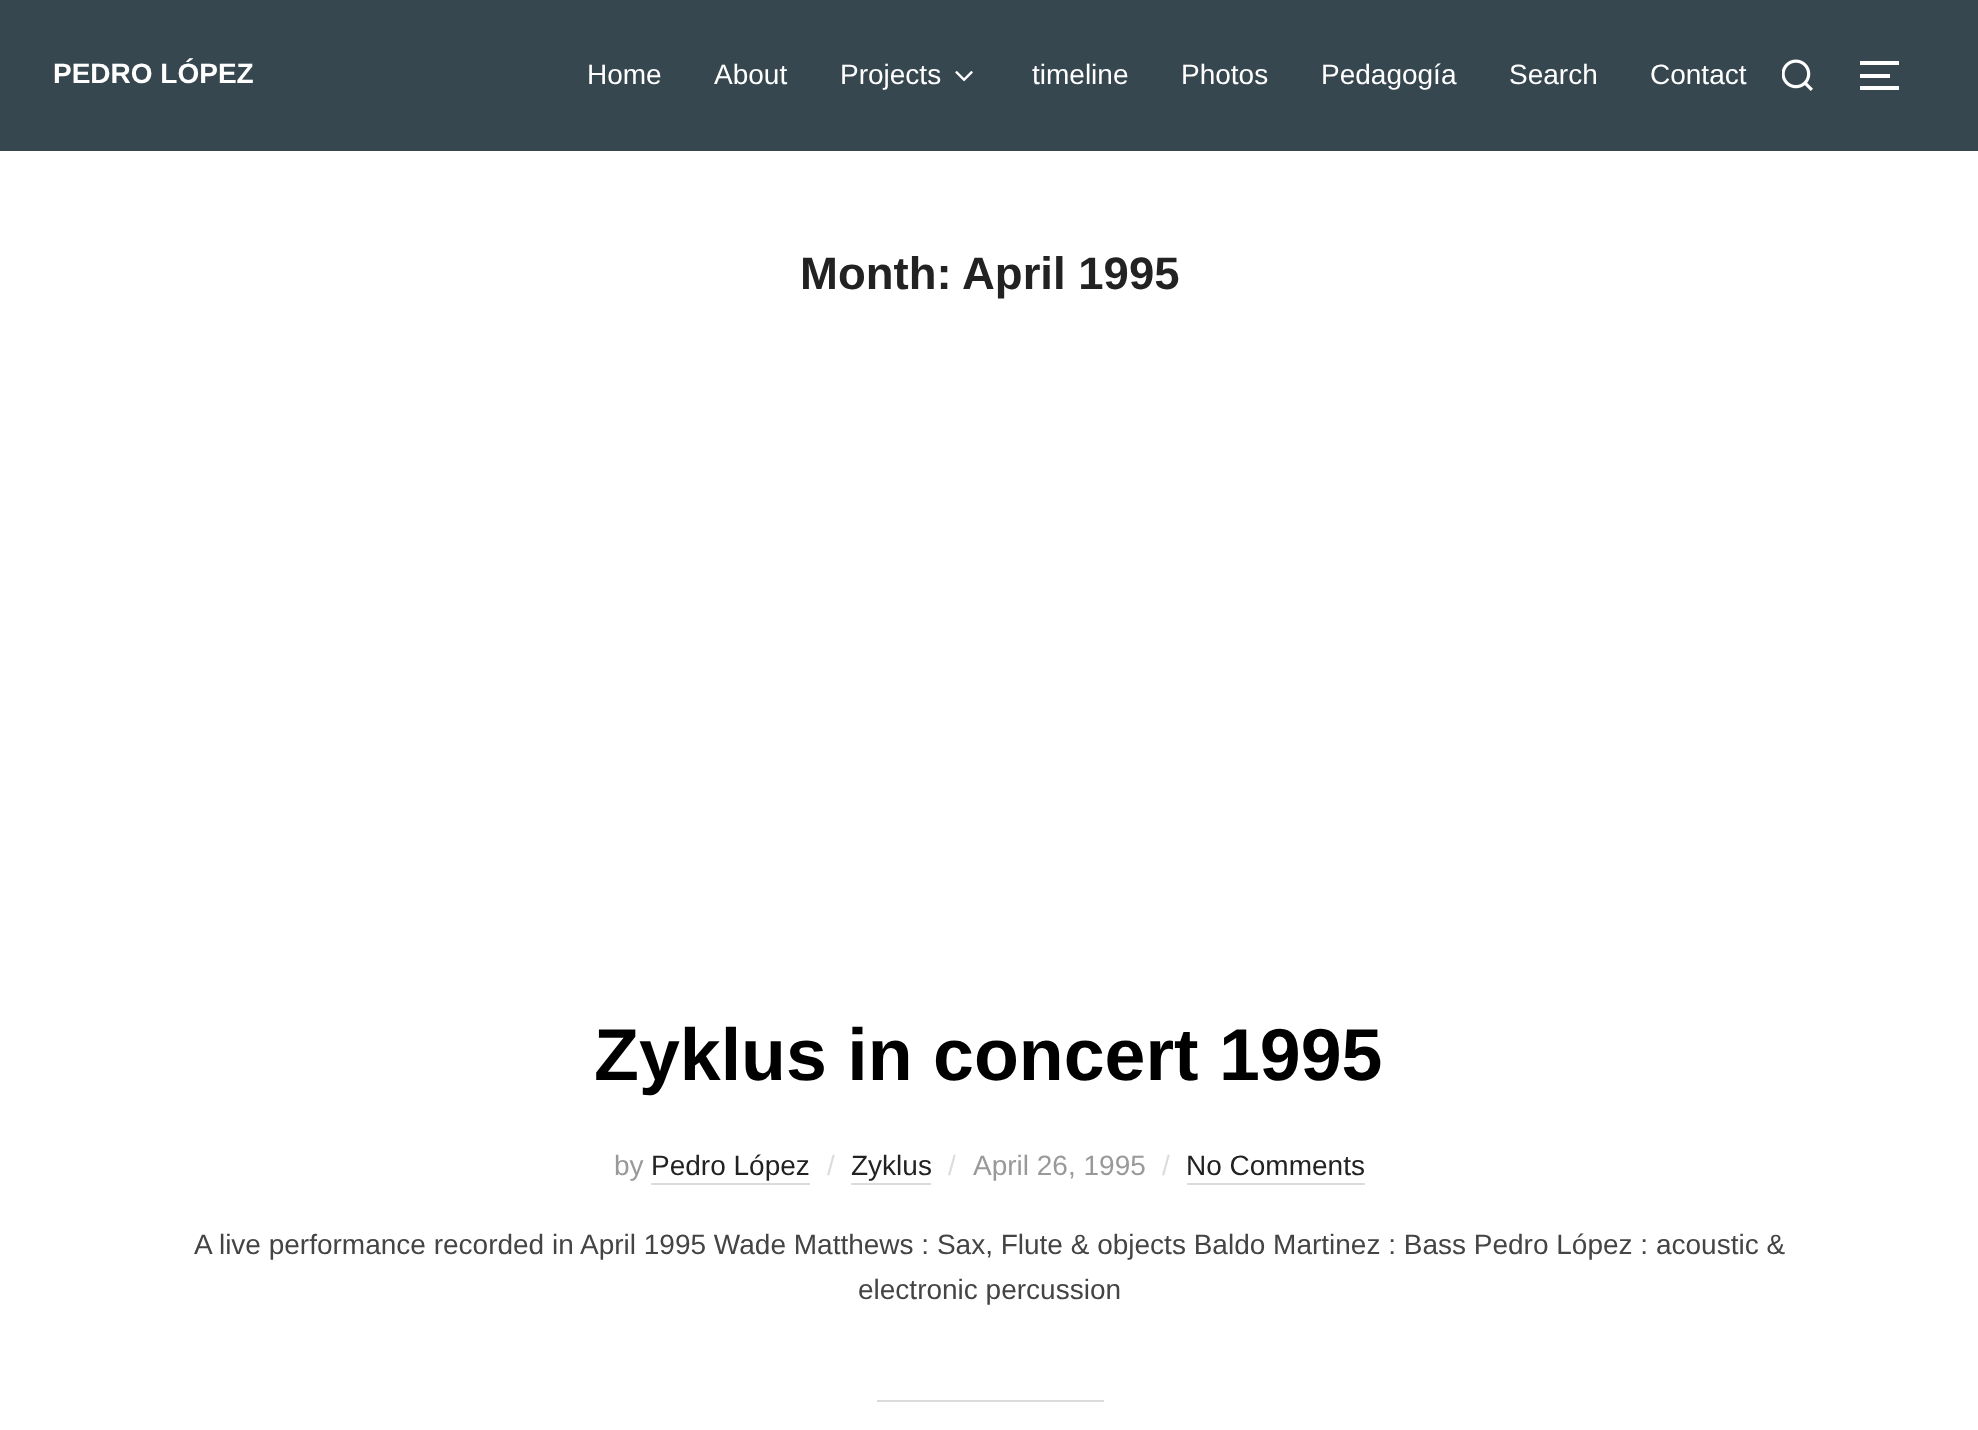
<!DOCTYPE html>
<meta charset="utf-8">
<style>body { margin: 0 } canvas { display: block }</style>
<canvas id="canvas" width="1978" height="1430"></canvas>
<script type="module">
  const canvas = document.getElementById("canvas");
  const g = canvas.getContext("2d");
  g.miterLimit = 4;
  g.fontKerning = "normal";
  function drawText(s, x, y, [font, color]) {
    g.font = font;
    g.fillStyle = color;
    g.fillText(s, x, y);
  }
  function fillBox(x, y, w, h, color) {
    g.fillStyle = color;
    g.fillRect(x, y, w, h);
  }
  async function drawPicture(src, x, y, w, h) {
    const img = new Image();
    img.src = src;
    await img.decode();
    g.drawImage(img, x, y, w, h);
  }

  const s1 = ["bold 28px Liberation Sans", "#FFFFFF"];
  const s2 = ["28px Liberation Sans", "#FFFFFF"];
  const s3 = ["bold 45.5px Liberation Sans", "#222222"];
  const s4 = ["bold 73.5px Liberation Sans", "#000000"];
  const s5 = ["28px Liberation Sans", "#999999"];
  const s6 = ["28px Liberation Sans", "#222222"];
  const s7 = ["28px Liberation Sans", "#DBDDDD"];
  const s8 = ["28px Liberation Sans", "#444444"];

  fillBox(0, 0, 1978, 1430, "#FFFFFF");
  fillBox(0, 0, 1978, 151, "#37474F");
  drawText("PEDRO LÓPEZ", 53, 83, s1);
  drawText("Home", 587, 84, s2);
  drawText("About", 714, 84, s2);
  drawText("Projects", 840, 84, s2);
  await drawPicture("pic1.png", 955, 71, 18, 11);
  drawText("timeline", 1032, 84, s2);
  drawText("Photos", 1181, 84, s2);
  drawText("Pedagogía", 1321, 84, s2);
  drawText("Search", 1509, 84, s2);
  drawText("Contact", 1650, 84, s2);
  await drawPicture("pic2.png", 1782, 59, 31, 32);
  fillBox(1860, 61, 39, 4, "#FFFFFF");
  fillBox(1860, 74, 30, 4, "#FFFFFF");
  fillBox(1860, 86, 39, 4, "#FFFFFF");
  drawText("Month:", 800, 289, s3);
  drawText("April 1995", 962, 289, s3);
  drawText("Zyklus in concert 1995", 594, 1080, s4);
  drawText("by", 614, 1175, s5);
  drawText("Pedro López", 651, 1175, s6);
  fillBox(651, 1183, 159, 2, "#DBDBDB");
  drawText("/", 827, 1175, s7);
  drawText("Zyklus", 851, 1175, s6);
  fillBox(851, 1183, 80, 2, "#DBDBDB");
  drawText("/", 948, 1175, s7);
  drawText("April 26, 1995", 973, 1175, s5);
  drawText("/", 1162, 1175, s7);
  drawText("No Comments", 1186, 1175, s6);
  fillBox(1187, 1183, 178, 2, "#DBDBDB");
  drawText("A live performance recorded in April 1995 Wade Matthews : Sax, Flute & objects Baldo Martinez : Bass Pedro López : acoustic &", 194, 1254, s8);
  drawText("electronic percussion", 858, 1299, s8);
  fillBox(877, 1400, 227, 2, "#DBDBDB");
</script>
